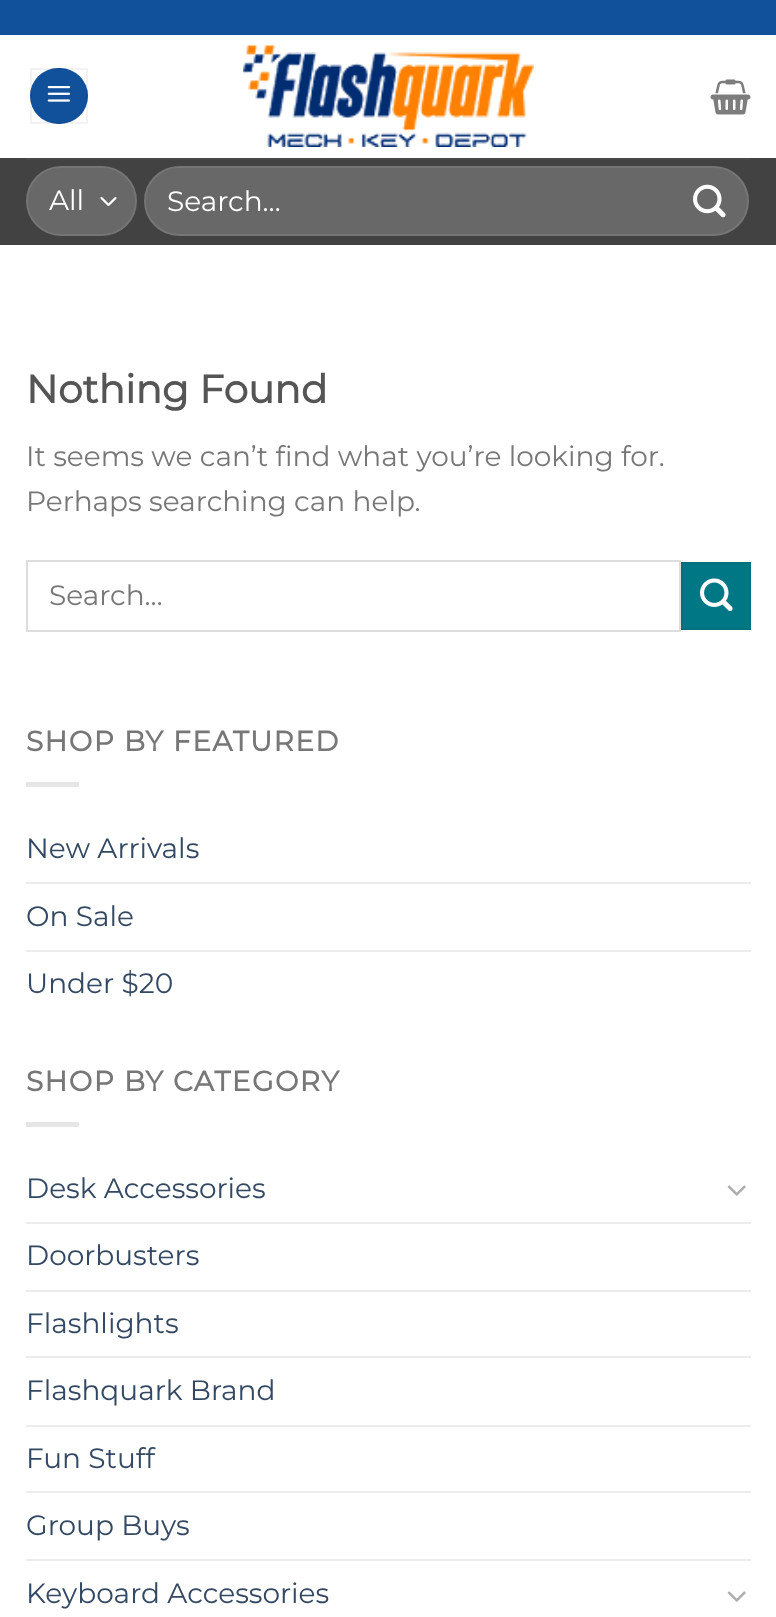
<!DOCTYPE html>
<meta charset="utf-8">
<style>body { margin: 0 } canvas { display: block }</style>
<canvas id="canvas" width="776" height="1617"></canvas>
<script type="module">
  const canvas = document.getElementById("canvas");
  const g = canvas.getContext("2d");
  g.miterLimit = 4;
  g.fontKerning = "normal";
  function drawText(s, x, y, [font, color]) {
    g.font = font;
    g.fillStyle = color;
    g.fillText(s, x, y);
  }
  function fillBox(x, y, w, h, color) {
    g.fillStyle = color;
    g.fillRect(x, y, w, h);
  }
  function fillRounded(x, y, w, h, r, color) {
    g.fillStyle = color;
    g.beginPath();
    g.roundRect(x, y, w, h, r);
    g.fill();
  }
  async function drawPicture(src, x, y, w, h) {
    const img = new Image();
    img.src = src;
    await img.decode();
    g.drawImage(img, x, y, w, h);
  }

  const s1 = ["100 28px Montserrat", "#FFFFFF"];
  const s2 = ["bold 39.25px Montserrat", "#555555"];
  const s3 = ["100 28px Montserrat", "#777777"];
  const s4 = ["bold 28px Montserrat", "#777777"];
  const s5 = ["100 28px Montserrat", "#334862"];

  fillBox(0, 0, 776, 1617, "#FFFFFF");
  fillBox(0, 0, 776, 35, "#11519B");
  fillRounded(30, 68, 58, 56, 28, "#11519B");
  g.strokeStyle = "rgba(0, 0, 0, 0.05)";
  g.lineWidth = 2;
  g.strokeRect(31, 69, 56, 54);
  await drawPicture("pic1.png", 47, 86, 24, 16);
  await drawPicture("pic2.png", 243, 45, 291, 102);
  await drawPicture("pic3.png", 710, 79, 41, 36);
  fillBox(0, 158, 776, 87, "#424242");
  fillBox(26, 158, 725, 2, "#474747");
  fillRounded(26, 166, 111, 70, 35, "#686868");
  g.beginPath();
  g.moveTo(101.5, 198);
  g.lineTo(108.5, 205);
  g.lineTo(115.5, 198);
  g.strokeStyle = "#FFFFFF";
  g.lineWidth = 2.3;
  g.lineCap = "round";
  g.lineJoin = "round";
  g.stroke();
  g.beginPath();
  g.roundRect(27, 167, 109, 68, 34);
  g.strokeStyle = "rgba(255, 255, 255, 0.09)";
  g.lineWidth = 2;
  g.lineJoin = "miter";
  g.stroke();
  drawText("All", 49, 210, s1);
  fillRounded(144, 166, 605, 70, 35, "#686868");
  g.beginPath();
  g.roundRect(145, 167, 603, 68, 34);
  g.stroke();
  drawText("Search…", 167, 211, s1);
  await drawPicture("pic4.png", 693, 184, 33, 34);
  drawText("Nothing Found", 26, 403, s2);
  drawText("It seems we can’t find what you’re looking for.", 26, 466, s3);
  drawText("Perhaps searching can help.", 26, 511, s3);
  g.strokeStyle = "#DDDDDD";
  g.strokeRect(27, 561, 653, 70);
  drawText("Search…", 49, 605, s3);
  g.fillStyle = "#007784";
  g.beginPath();
  g.rect(682, 563, 68, 66);
  g.fill();
  g.strokeStyle = "#00717D";
  g.stroke();
  await drawPicture("pic5.png", 700, 578, 33, 33);
  g.letterSpacing = "1.4px";
  drawText("SHOP BY FEATURED", 26, 751, s4);
  fillBox(26, 782, 53, 5, "#E6E6E6");
  g.letterSpacing = "0px";
  drawText("New Arrivals", 26, 858, s5);
  fillBox(26, 882, 725, 2, "#ECECEC");
  drawText("On Sale", 26, 926, s5);
  fillBox(26, 950, 725, 2, "#ECECEC");
  drawText("Under $20", 26, 993, s5);
  g.letterSpacing = "1.4px";
  drawText("SHOP BY CATEGORY", 26, 1091, s4);
  fillBox(26, 1122, 53, 5, "#E6E6E6");
  g.letterSpacing = "0px";
  drawText("Desk Accessories", 26, 1198, s5);
  await drawPicture("pic6.png", 727, 1185, 19, 11);
  fillBox(26, 1222, 725, 2, "#ECECEC");
  drawText("Doorbusters", 26, 1265, s5);
  fillBox(26, 1290, 725, 2, "#ECECEC");
  drawText("Flashlights", 26, 1333, s5);
  fillBox(26, 1356, 725, 2, "#ECECEC");
  drawText("Flashquark Brand", 26, 1400, s5);
  fillBox(26, 1425, 725, 2, "#ECECEC");
  drawText("Fun Stuff", 26, 1468, s5);
  fillBox(26, 1491, 725, 2, "#ECECEC");
  drawText("Group Buys", 26, 1535, s5);
  fillBox(26, 1559, 725, 2, "#ECECEC");
  drawText("Keyboard Accessories", 26, 1603, s5);
  await drawPicture("pic6.png", 727, 1591, 19, 11);
</script>
